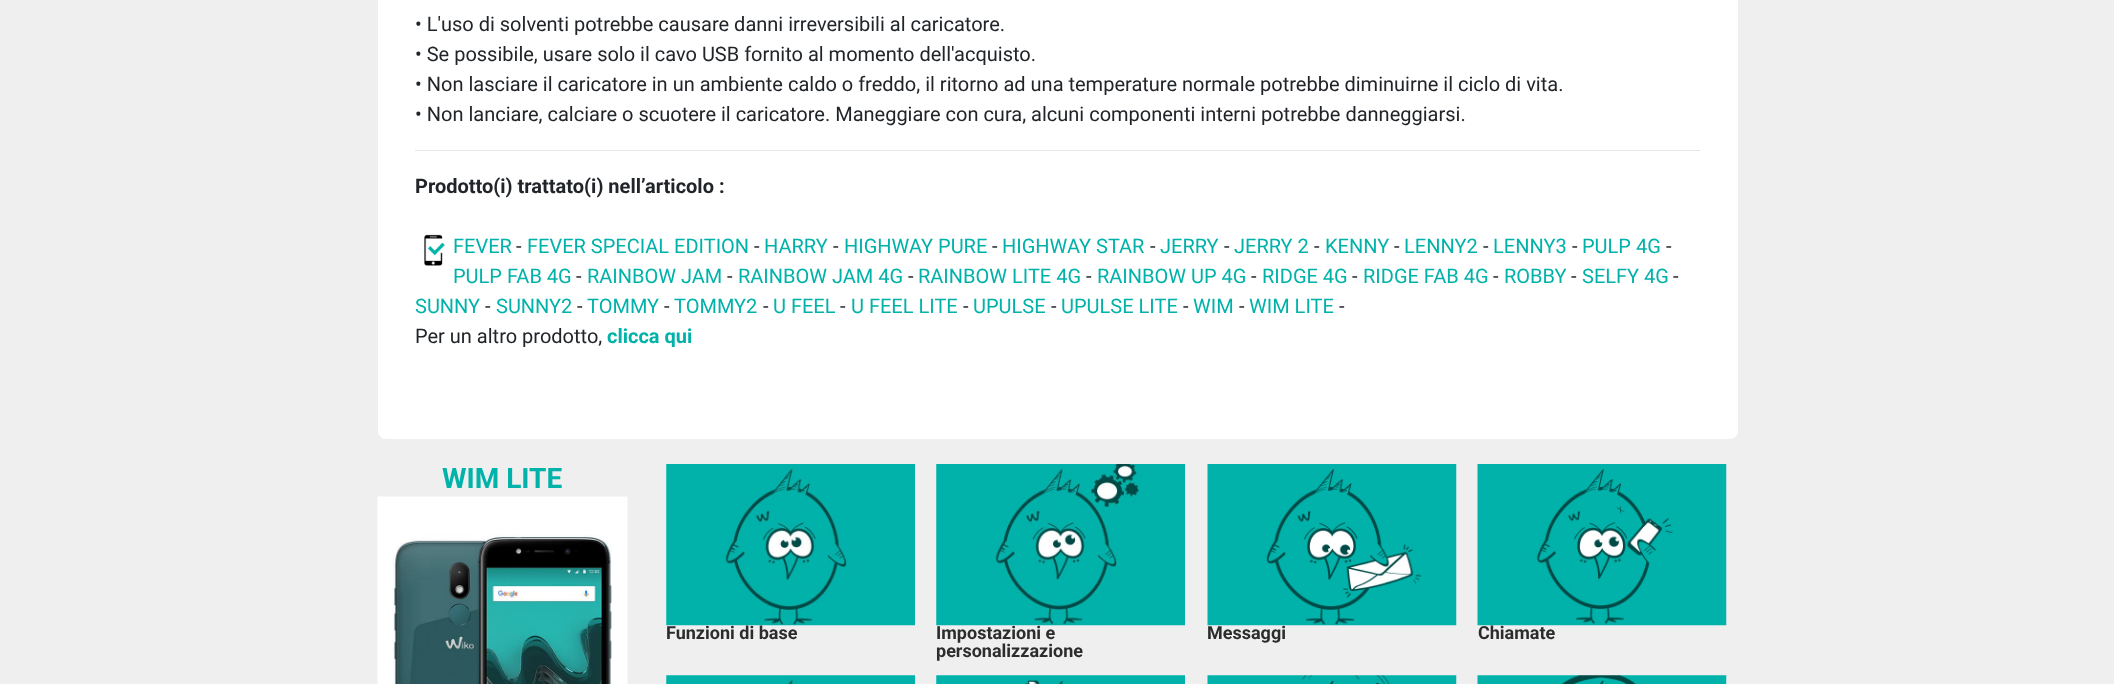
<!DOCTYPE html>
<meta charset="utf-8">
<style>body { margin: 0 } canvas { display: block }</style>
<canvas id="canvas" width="2114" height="684"></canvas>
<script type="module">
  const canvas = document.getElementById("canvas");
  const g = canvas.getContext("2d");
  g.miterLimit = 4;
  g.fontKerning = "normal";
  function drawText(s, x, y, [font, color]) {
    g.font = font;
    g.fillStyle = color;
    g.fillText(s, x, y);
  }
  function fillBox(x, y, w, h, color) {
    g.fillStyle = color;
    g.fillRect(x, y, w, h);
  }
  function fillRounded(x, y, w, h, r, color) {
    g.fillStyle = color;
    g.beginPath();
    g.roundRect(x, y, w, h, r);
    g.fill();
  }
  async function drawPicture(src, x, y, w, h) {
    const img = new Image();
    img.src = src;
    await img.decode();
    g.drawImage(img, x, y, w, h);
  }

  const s1 = ["20px Roboto", "#212529"];
  const s2 = ["bold 20px Roboto", "#212529"];
  const s3 = ["20px Roboto", "#00B2A9"];
  const s4 = ["bold 20px Roboto", "#00B2A9"];
  const s5 = ["bold 28px Roboto", "#00B2A9"];
  const s6 = ["bold 18px Roboto", "#2C2C2C"];

  fillBox(0, 0, 2114, 684, "#EFEFEF");
  fillRounded(378, -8, 1360, 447, 8, "#FFFFFF");
  drawText("• L'uso di solventi potrebbe causare danni irreversibili al caricatore.", 415, 31, s1);
  drawText("• Se possibile, usare solo il cavo USB fornito al momento dell'acquisto.", 415, 61, s1);
  drawText("• Non lasciare il caricatore in un ambiente caldo o freddo, il ritorno ad una temperature normale potrebbe diminuirne il ciclo di vita.", 415, 91, s1);
  drawText("• Non lanciare, calciare o scuotere il caricatore. Maneggiare con cura, alcuni componenti interni potrebbe danneggiarsi.", 415, 121, s1);
  fillBox(415, 150, 1285, 1, "#E6E6E6");
  drawText("Prodotto(i) trattato(i) nell’articolo :", 415, 193, s2);
  await drawPicture("pic1.png", 424, 234, 21, 32);
  drawText("FEVER", 453, 253, s3);
  drawText("-", 516, 253, s1);
  drawText("FEVER SPECIAL EDITION", 527, 253, s3);
  drawText("-", 754, 253, s1);
  drawText("HARRY", 764, 253, s3);
  drawText("-", 833, 253, s1);
  drawText("HIGHWAY PURE", 844, 253, s3);
  drawText("-", 992, 253, s1);
  drawText("HIGHWAY STAR", 1002, 253, s3);
  drawText("-", 1150, 253, s1);
  drawText("JERRY", 1160, 253, s3);
  drawText("-", 1224, 253, s1);
  drawText("JERRY 2", 1234, 253, s3);
  drawText("-", 1314, 253, s1);
  drawText("KENNY", 1325, 253, s3);
  drawText("-", 1394, 253, s1);
  drawText("LENNY2", 1404, 253, s3);
  drawText("-", 1483, 253, s1);
  drawText("LENNY3", 1493, 253, s3);
  drawText("-", 1572, 253, s1);
  drawText("PULP 4G", 1582, 253, s3);
  drawText("-", 1666, 253, s1);
  drawText("PULP FAB 4G", 453, 283, s3);
  drawText("-", 576, 283, s1);
  drawText("RAINBOW JAM", 587, 283, s3);
  drawText("-", 727, 283, s1);
  drawText("RAINBOW JAM 4G", 738, 283, s3);
  drawText("-", 908, 283, s1);
  drawText("RAINBOW LITE 4G", 918, 283, s3);
  drawText("-", 1086, 283, s1);
  drawText("RAINBOW UP 4G", 1097, 283, s3);
  drawText("-", 1251, 283, s1);
  drawText("RIDGE 4G", 1262, 283, s3);
  drawText("-", 1352, 283, s1);
  drawText("RIDGE FAB 4G", 1363, 283, s3);
  drawText("-", 1493, 283, s1);
  drawText("ROBBY", 1504, 283, s3);
  drawText("-", 1571, 283, s1);
  drawText("SELFY 4G", 1582, 283, s3);
  drawText("-", 1673, 283, s1);
  drawText("SUNNY", 415, 313, s3);
  drawText("-", 485, 313, s1);
  drawText("SUNNY2", 496, 313, s3);
  drawText("-", 577, 313, s1);
  drawText("TOMMY", 587, 313, s3);
  drawText("-", 664, 313, s1);
  drawText("TOMMY2", 674, 313, s3);
  drawText("-", 763, 313, s1);
  drawText("U FEEL", 773, 313, s3);
  drawText("-", 840, 313, s1);
  drawText("U FEEL LITE", 851, 313, s3);
  drawText("-", 963, 313, s1);
  drawText("UPULSE", 973, 313, s3);
  drawText("-", 1051, 313, s1);
  drawText("UPULSE LITE", 1061, 313, s3);
  drawText("-", 1183, 313, s1);
  drawText("WIM", 1193, 313, s3);
  drawText("-", 1239, 313, s1);
  drawText("WIM LITE", 1249, 313, s3);
  drawText("-", 1339, 313, s1);
  drawText("Per un altro prodotto,", 415, 343, s1);
  drawText("clicca qui", 607, 343, s4);
  drawText("WIM LITE", 442, 488, s5);
  await drawPicture("pic2.png", 377, 496, 251, 188);
  await drawPicture("pic3.png", 666, 464, 249, 162);
  drawText("Funzioni di base", 666, 639, s6);
  await drawPicture("pic4.png", 936, 464, 249, 162);
  drawText("Impostazioni e", 936, 639, s6);
  drawText("personalizzazione", 936, 657, s6);
  await drawPicture("pic5.png", 1207, 464, 250, 162);
  drawText("Messaggi", 1207, 639, s6);
  await drawPicture("pic6.png", 1477, 464, 250, 162);
  drawText("Chiamate", 1478, 639, s6);
  await drawPicture("pic7.png", 666, 675, 249, 9);
  await drawPicture("pic8.png", 936, 675, 249, 9);
  await drawPicture("pic9.png", 1207, 675, 250, 9);
  await drawPicture("pic10.png", 1477, 675, 250, 9);
</script>
